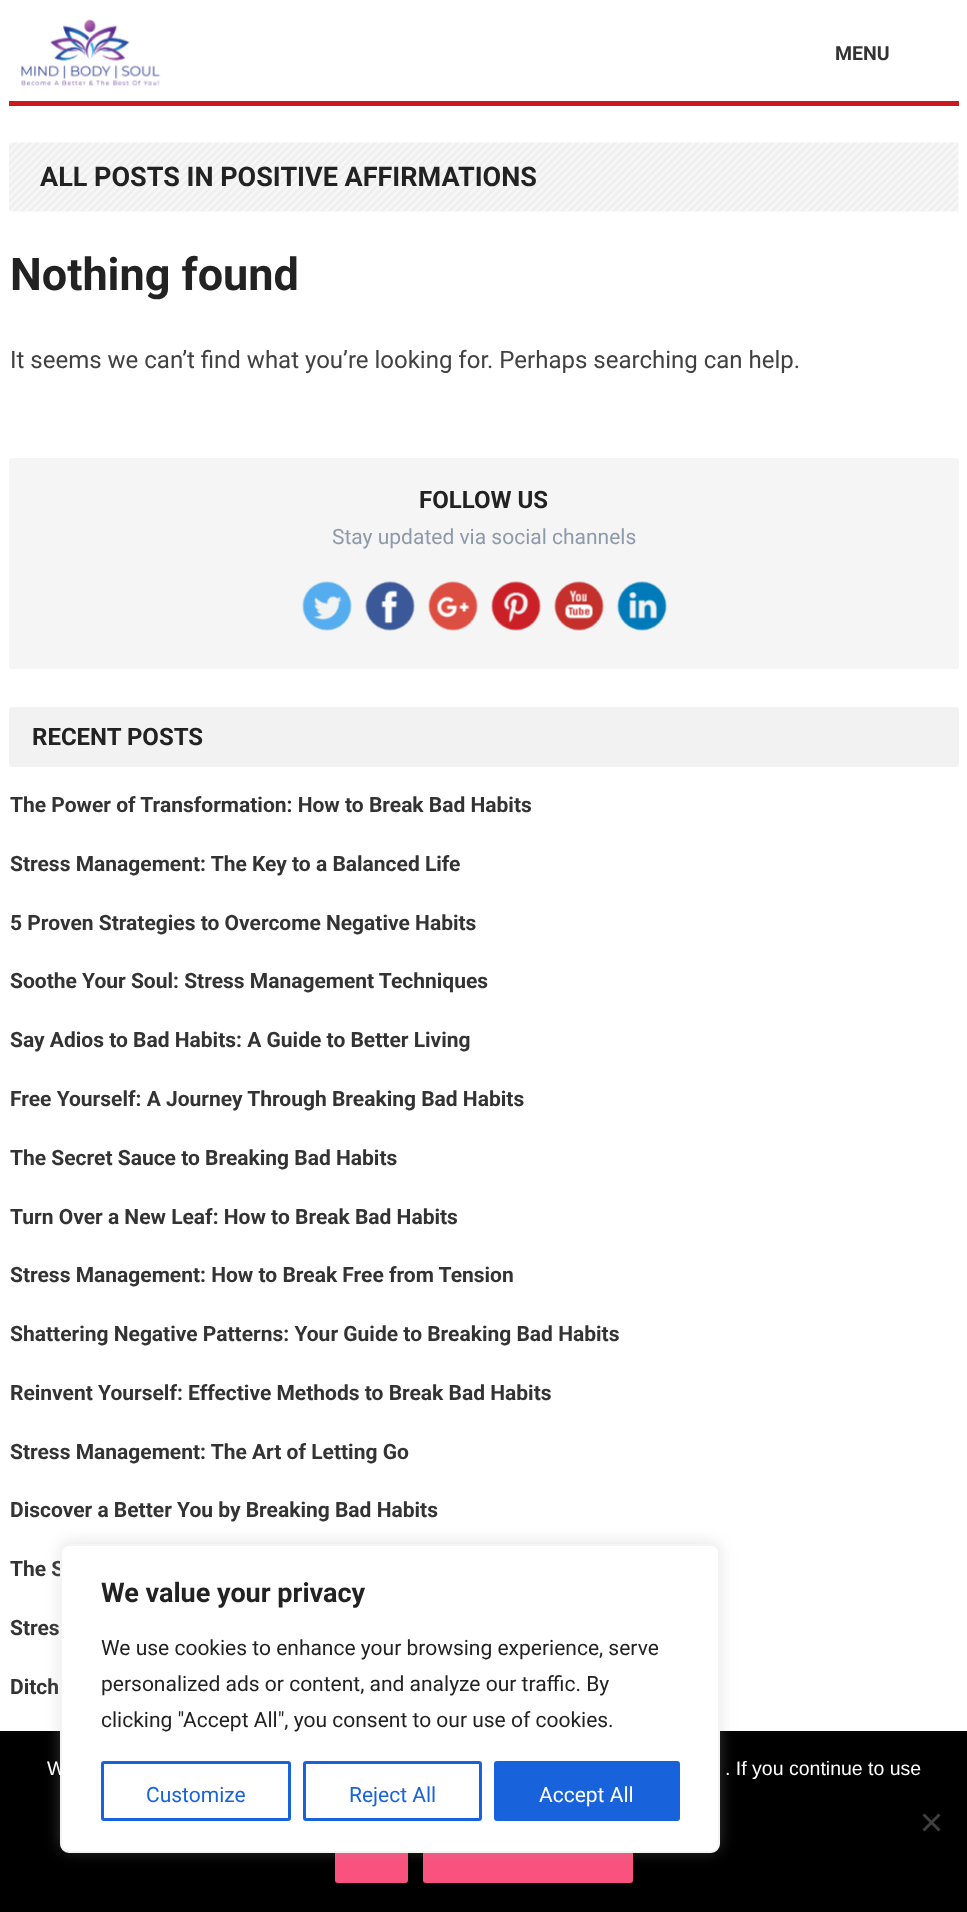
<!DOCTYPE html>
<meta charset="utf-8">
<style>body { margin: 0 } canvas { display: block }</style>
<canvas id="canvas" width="967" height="1912"></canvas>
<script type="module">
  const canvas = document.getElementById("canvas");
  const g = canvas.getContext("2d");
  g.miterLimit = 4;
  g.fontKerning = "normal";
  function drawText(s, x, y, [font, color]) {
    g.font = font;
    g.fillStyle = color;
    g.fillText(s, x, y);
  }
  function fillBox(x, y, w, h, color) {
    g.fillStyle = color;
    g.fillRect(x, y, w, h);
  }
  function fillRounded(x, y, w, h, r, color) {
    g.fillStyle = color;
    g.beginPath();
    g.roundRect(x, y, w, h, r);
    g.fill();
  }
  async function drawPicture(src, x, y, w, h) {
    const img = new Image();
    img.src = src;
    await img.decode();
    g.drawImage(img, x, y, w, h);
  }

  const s1 = ["bold 19.5px Roboto", "#333333"];
  const s2 = ["bold 27px Roboto", "#222222"];
  const s3 = ["bold 45px Roboto", "#222222"];
  const s4 = ["24px Roboto", "#414141"];
  const s5 = ["bold 24px Roboto", "#222222"];
  const s6 = ["21px Roboto", "#8E99A9"];
  const s7 = ["bold 21px Roboto", "#333333"];
  const s8 = ["21px Roboto", "#222222"];
  const s9 = ["21px Roboto", "#1863DC"];
  const s10 = ["21px Roboto", "#FFFFFF"];
  const s11 = ["19.5px Liberation Sans", "#FFFFFF"];

  fillBox(0, 0, 967, 1912, "#FFFFFF");
  fillBox(9, 101, 950, 5, "#CE181E");
  await drawPicture("pic1.png", 21, 19, 140, 67);
  drawText("MENU", 835, 60, s1);
  await drawPicture("pic2.png", 9, 142, 950, 70);
  drawText("ALL POSTS IN POSITIVE AFFIRMATIONS", 40, 186, s2);
  drawText("Nothing found", 10, 290, s3);
  drawText("It seems we can’t find what you’re looking for. Perhaps searching can help.", 10, 368, s4);
  fillRounded(9, 458, 950, 211, 3, "#F5F5F5");
  drawText("FOLLOW US", 419, 508, s5);
  drawText("Stay updated via social channels", 332, 544, s6);
  await drawPicture("pic3.png", 302, 581, 50, 50);
  await drawPicture("pic4.png", 365, 581, 50, 50);
  await drawPicture("pic5.png", 428, 581, 50, 50);
  await drawPicture("pic6.png", 491, 581, 50, 50);
  await drawPicture("pic7.png", 554, 581, 50, 50);
  await drawPicture("pic8.png", 617, 581, 50, 50);
  fillRounded(9, 707, 950, 60, 3, "#F2F2F2");
  drawText("RECENT POSTS", 32, 745, s5);
  drawText("The Power of Transformation: How to Break Bad Habits", 10, 812, s7);
  drawText("Stress Management: The Key to a Balanced Life", 10, 871, s7);
  drawText("5 Proven Strategies to Overcome Negative Habits", 10, 930, s7);
  drawText("Soothe Your Soul: Stress Management Techniques", 10, 988, s7);
  drawText("Say Adios to Bad Habits: A Guide to Better Living", 10, 1047, s7);
  drawText("Free Yourself: A Journey Through Breaking Bad Habits", 10, 1106, s7);
  drawText("The Secret Sauce to Breaking Bad Habits", 10, 1165, s7);
  drawText("Turn Over a New Leaf: How to Break Bad Habits", 10, 1224, s7);
  drawText("Stress Management: How to Break Free from Tension", 10, 1282, s7);
  drawText("Shattering Negative Patterns: Your Guide to Breaking Bad Habits", 10, 1341, s7);
  drawText("Reinvent Yourself: Effective Methods to Break Bad Habits", 10, 1400, s7);
  drawText("Stress Management: The Art of Letting Go", 10, 1459, s7);
  drawText("Discover a Better You by Breaking Bad Habits", 10, 1517, s7);
  drawText("The S", 10, 1576, s7);
  drawText("Stres", 10, 1635, s7);
  drawText("Ditch", 10, 1694, s7);
  fillBox(0, 1731, 967, 181, "#000000");
  fillRounded(335, 1823, 73, 60, 3, "#F9527F");
  fillRounded(423, 1823, 210, 60, 3, "#F9527F");
  g.fillStyle = "rgba(172, 171, 171, 0.3)";
  g.filter = "blur(7.5px)";
  g.beginPath();
  g.roundRect(60, 1542, 660, 309, 9);
  g.fill();
  g.filter = "none";
  g.fillStyle = "#FFFFFF";
  g.beginPath();
  g.roundRect(61, 1545, 658, 307, 8);
  g.fill();
  g.strokeStyle = "#F4F4F4";
  g.lineWidth = 2;
  g.stroke();
  drawText("We value your privacy", 101, 1602, s2);
  drawText("We use cookies to enhance your browsing experience, serve", 101, 1655, s8);
  drawText("personalized ads or content, and analyze our traffic. By", 101, 1691, s8);
  drawText("clicking \"Accept All\", you consent to our use of cookies.", 101, 1727, s8);
  g.beginPath();
  g.roundRect(102.5, 1762.5, 187, 57, 1.5);
  g.strokeStyle = "#1863DC";
  g.lineWidth = 3;
  g.stroke();
  drawText("Customize", 146, 1802, s9);
  g.beginPath();
  g.roundRect(304.5, 1762.5, 176, 57, 1.5);
  g.stroke();
  drawText("Reject All", 349, 1802, s9);
  g.beginPath();
  g.roundRect(495.5, 1762.5, 183, 57, 1.5);
  g.fill();
  g.stroke();
  drawText("Accept All", 539, 1802, s10);
  drawText("W", 47, 1775, s11);
  drawText(". If you continue to use", 725, 1775, s11);
  g.fillStyle = "#404040";
  g.beginPath();
  g.moveTo(938.5, 1813.5);
  g.lineTo(940.5, 1815.5);
  g.lineTo(924.5, 1831.5);
  g.lineTo(922.5, 1829.5);
  g.closePath();
  g.fill();
  g.beginPath();
  g.moveTo(922.5, 1815.5);
  g.lineTo(924.5, 1813.5);
  g.lineTo(940.5, 1829.5);
  g.lineTo(938.5, 1831.5);
  g.closePath();
  g.fill();
</script>
